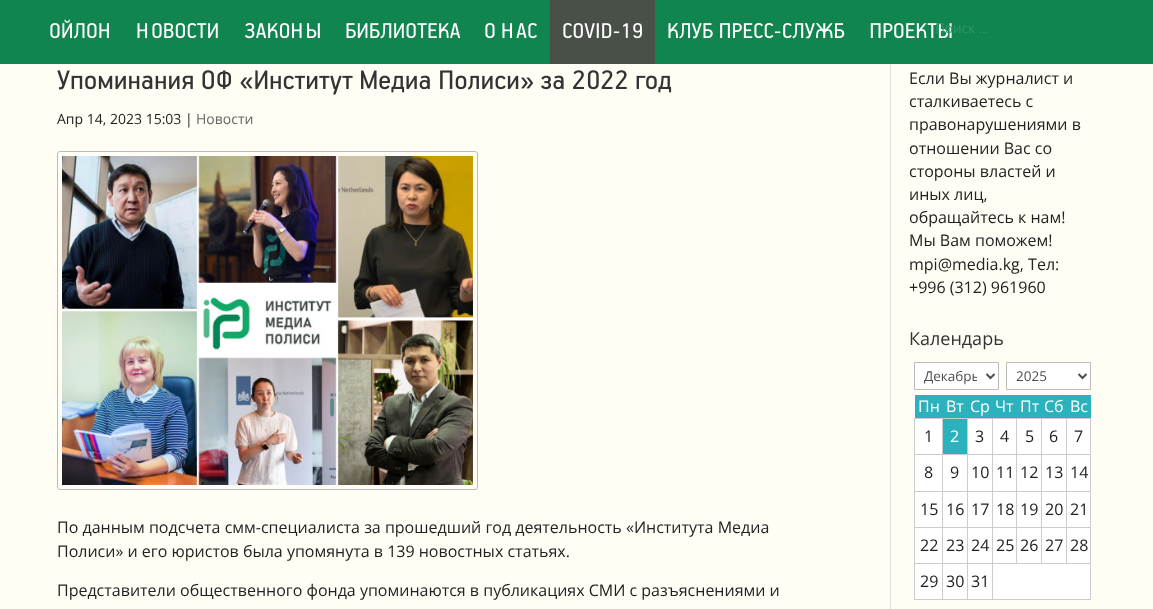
<!DOCTYPE html>
<meta charset="utf-8">
<style>body { margin: 0 } canvas { display: block }</style>
<canvas id="canvas" width="1153" height="609"></canvas>
<script type="module">
  const canvas = document.getElementById("canvas");
  const g = canvas.getContext("2d");
  g.miterLimit = 4;
  g.fontKerning = "normal";
  function drawText(s, x, y, [font, color]) {
    g.font = font;
    g.fillStyle = color;
    g.fillText(s, x, y);
  }
  function fillBox(x, y, w, h, color) {
    g.fillStyle = color;
    g.fillRect(x, y, w, h);
  }
  async function drawPicture(src, x, y, w, h) {
    const img = new Image();
    img.src = src;
    await img.decode();
    g.drawImage(img, x, y, w, h);
  }

  const s1 = ["13.5px Open Sans", "#309566"];
  const s2 = ["14px Open Sans", "#222222"];
  const s3 = ["14px Open Sans", "#666666"];
  const s4 = ["16px Open Sans", "#222222"];
  const s5 = ["18px Open Sans", "#333333"];
  const s6 = ["13.5px Open Sans", "#4E4E4E"];
  const s7 = ["16px Open Sans", "#FFFFFF"];

  fillBox(0, 0, 1153, 609, "#FFFDF4");
  fillBox(0, 0, 1153, 64, "#10854F");
  await drawPicture("pic1.png", 50, 19, 59, 20);
  await drawPicture("pic2.png", 137, 23, 81, 16);
  await drawPicture("pic3.png", 245, 23, 75, 16);
  await drawPicture("pic4.png", 346, 23, 115, 16);
  await drawPicture("pic5.png", 485, 23, 52, 16);
  fillBox(550, 0, 105, 64, "#495048");
  await drawPicture("pic6.png", 563, 23, 79, 16);
  await drawPicture("pic7.png", 668, 23, 177, 16);
  await drawPicture("pic8.png", 870, 23, 82, 16);
  drawText("Поиск …", 935, 33, s1);
  fillBox(890, 64, 1, 545, "#E2E2E2");
  await drawPicture("pic9.png", 57, 70, 615, 25);
  drawText("Апр 14, 2023 15:03 |", 57, 124, s2);
  drawText("Новости", 196, 124, s3);
  g.beginPath();
  g.roundRect(57.5, 151.5, 420, 338, 2.5);
  g.strokeStyle = "#BBBBBB";
  g.stroke();
  await drawPicture("pic10.png", 62, 156, 411, 329);
  drawText("По данным подсчета смм-специалиста за прошедший год деятельность «Института Медиа", 57, 533, s4);
  drawText("Полиси» и его юристов была упомянута в 139 новостных статьях.", 57, 557, s4);
  drawText("Представители общественного фонда упоминаются в публикациях СМИ с разъяснениями и", 57, 596, s4);
  drawText("Если Вы журналист и", 909, 84, s4);
  drawText("сталкиваетесь с", 909, 107, s4);
  drawText("правонарушениями в", 909, 130, s4);
  drawText("отношении Вас со", 909, 154, s4);
  drawText("стороны властей и", 909, 177, s4);
  drawText("иных лиц,", 909, 200, s4);
  drawText("обращайтесь к нам!", 909, 223, s4);
  drawText("Мы Вам поможем!", 909, 246, s4);
  drawText("mpi@media.kg, Тел:", 909, 270, s4);
  drawText("+996 (312) 961960", 909, 293, s4);
  drawText("Календарь", 909, 345, s5);
  g.fillStyle = "#FFFFFF";
  g.beginPath();
  g.rect(914.5, 362.5, 84, 27);
  g.fill();
  g.stroke();
  g.beginPath();
  g.moveTo(986.5, 374);
  g.lineTo(990.5, 378);
  g.lineTo(994.5, 374);
  g.strokeStyle = "#4E4E4E";
  g.lineWidth = 2;
  g.stroke();
  g.save();
  g.beginPath();
  g.rect(924, 366, 53, 20);
  g.clip();
  drawText("Декабрь", 924, 381, s6);
  g.restore();
  g.beginPath();
  g.rect(1006.5, 362.5, 84, 27);
  g.fill();
  g.strokeStyle = "#BBBBBB";
  g.lineWidth = 1;
  g.stroke();
  g.beginPath();
  g.moveTo(1078.5, 374);
  g.lineTo(1082.5, 378);
  g.lineTo(1086.5, 374);
  g.strokeStyle = "#4E4E4E";
  g.lineWidth = 2;
  g.stroke();
  drawText("2025", 1016, 381, s6);
  fillBox(914, 395, 176, 204, "#FFFFFF");
  fillBox(915, 395, 176, 23, "#2CB2BC");
  drawText("Пн", 918, 412, s7);
  drawText("Вт", 946, 412, s7);
  drawText("Ср", 970, 412, s7);
  drawText("Чт", 995, 412, s7);
  drawText("Пт", 1020, 412, s7);
  drawText("Сб", 1044, 412, s7);
  drawText("Вс", 1070, 412, s7);
  fillBox(1066, 418, 25, 1, "#CCCCCC");
  fillBox(1066, 454, 25, 1, "#CCCCCC");
  fillBox(1066, 491, 25, 1, "#CCCCCC");
  fillBox(1066, 527, 25, 1, "#CCCCCC");
  fillBox(992, 563, 99, 1, "#CCCCCC");
  fillBox(1066, 527, 1, 37, "#CCCCCC");
  fillBox(1041, 527, 26, 1, "#CCCCCC");
  fillBox(1066, 491, 1, 37, "#CCCCCC");
  fillBox(1041, 491, 26, 1, "#CCCCCC");
  fillBox(1066, 454, 1, 38, "#CCCCCC");
  fillBox(1041, 454, 26, 1, "#CCCCCC");
  fillBox(1066, 418, 1, 37, "#CCCCCC");
  fillBox(1041, 418, 26, 1, "#CCCCCC");
  fillBox(1041, 527, 1, 37, "#CCCCCC");
  fillBox(1016, 527, 26, 1, "#CCCCCC");
  fillBox(1041, 491, 1, 37, "#CCCCCC");
  fillBox(1016, 491, 26, 1, "#CCCCCC");
  fillBox(1041, 454, 1, 38, "#CCCCCC");
  fillBox(1016, 454, 26, 1, "#CCCCCC");
  fillBox(1041, 418, 1, 37, "#CCCCCC");
  fillBox(1016, 418, 26, 1, "#CCCCCC");
  fillBox(1016, 527, 1, 37, "#CCCCCC");
  fillBox(992, 527, 25, 1, "#CCCCCC");
  fillBox(1016, 491, 1, 37, "#CCCCCC");
  fillBox(992, 491, 25, 1, "#CCCCCC");
  fillBox(1016, 454, 1, 38, "#CCCCCC");
  fillBox(992, 454, 25, 1, "#CCCCCC");
  fillBox(1016, 418, 1, 37, "#CCCCCC");
  fillBox(992, 418, 25, 1, "#CCCCCC");
  fillBox(1090, 563, 1, 37, "#CCCCCC");
  fillBox(992, 599, 99, 1, "#CCCCCC");
  fillBox(992, 563, 1, 37, "#CCCCCC");
  fillBox(967, 563, 26, 1, "#CCCCCC");
  fillBox(992, 527, 1, 37, "#CCCCCC");
  fillBox(967, 527, 26, 1, "#CCCCCC");
  fillBox(992, 491, 1, 37, "#CCCCCC");
  fillBox(967, 491, 26, 1, "#CCCCCC");
  fillBox(992, 454, 1, 38, "#CCCCCC");
  fillBox(967, 454, 26, 1, "#CCCCCC");
  fillBox(992, 418, 1, 37, "#CCCCCC");
  fillBox(967, 418, 26, 1, "#CCCCCC");
  fillBox(967, 599, 26, 1, "#CCCCCC");
  fillBox(967, 563, 1, 37, "#CCCCCC");
  fillBox(942, 563, 26, 1, "#CCCCCC");
  fillBox(967, 527, 1, 37, "#CCCCCC");
  fillBox(942, 527, 26, 1, "#CCCCCC");
  fillBox(967, 491, 1, 37, "#CCCCCC");
  fillBox(942, 491, 26, 1, "#CCCCCC");
  fillBox(967, 454, 1, 38, "#CCCCCC");
  fillBox(942, 454, 26, 1, "#CCCCCC");
  fillBox(967, 418, 1, 37, "#CCCCCC");
  fillBox(942, 418, 26, 1, "#CCCCCC");
  fillBox(942, 599, 26, 1, "#CCCCCC");
  fillBox(942, 563, 1, 37, "#CCCCCC");
  fillBox(914, 563, 29, 1, "#CCCCCC");
  fillBox(942, 527, 1, 37, "#CCCCCC");
  fillBox(914, 527, 29, 1, "#CCCCCC");
  fillBox(942, 491, 1, 37, "#CCCCCC");
  fillBox(914, 491, 29, 1, "#CCCCCC");
  fillBox(942, 454, 1, 38, "#CCCCCC");
  fillBox(914, 454, 29, 1, "#CCCCCC");
  fillBox(942, 418, 1, 37, "#CCCCCC");
  fillBox(914, 418, 29, 1, "#CCCCCC");
  fillBox(914, 599, 29, 1, "#CCCCCC");
  fillBox(914, 563, 1, 37, "#CCCCCC");
  fillBox(914, 527, 1, 37, "#CCCCCC");
  fillBox(914, 491, 1, 37, "#CCCCCC");
  fillBox(914, 454, 1, 38, "#CCCCCC");
  fillBox(914, 418, 1, 37, "#CCCCCC");
  drawText("1", 924, 442, s4);
  fillBox(943, 419, 24, 35, "#2CB2BC");
  drawText("2", 950, 442, s7);
  drawText("3", 975, 442, s4);
  drawText("4", 1000, 442, s4);
  drawText("5", 1025, 442, s4);
  drawText("6", 1049, 442, s4);
  fillBox(1090, 527, 1, 37, "#CCCCCC");
  fillBox(1090, 491, 1, 37, "#CCCCCC");
  fillBox(1090, 454, 1, 38, "#CCCCCC");
  fillBox(1090, 418, 1, 37, "#CCCCCC");
  drawText("7", 1074, 442, s4);
  drawText("8", 924, 478, s4);
  drawText("9", 950, 478, s4);
  drawText("10", 971, 478, s4);
  drawText("11", 996, 478, s4);
  drawText("12", 1020, 478, s4);
  drawText("13", 1045, 478, s4);
  drawText("14", 1070, 478, s4);
  drawText("15", 920, 515, s4);
  drawText("16", 946, 515, s4);
  drawText("17", 971, 515, s4);
  drawText("18", 996, 515, s4);
  drawText("19", 1020, 515, s4);
  drawText("20", 1045, 515, s4);
  drawText("21", 1070, 515, s4);
  drawText("22", 920, 551, s4);
  drawText("23", 946, 551, s4);
  drawText("24", 971, 551, s4);
  drawText("25", 996, 551, s4);
  drawText("26", 1020, 551, s4);
  drawText("27", 1045, 551, s4);
  drawText("28", 1070, 551, s4);
  drawText("29", 920, 587, s4);
  drawText("30", 946, 587, s4);
  drawText("31", 971, 587, s4);
</script>
